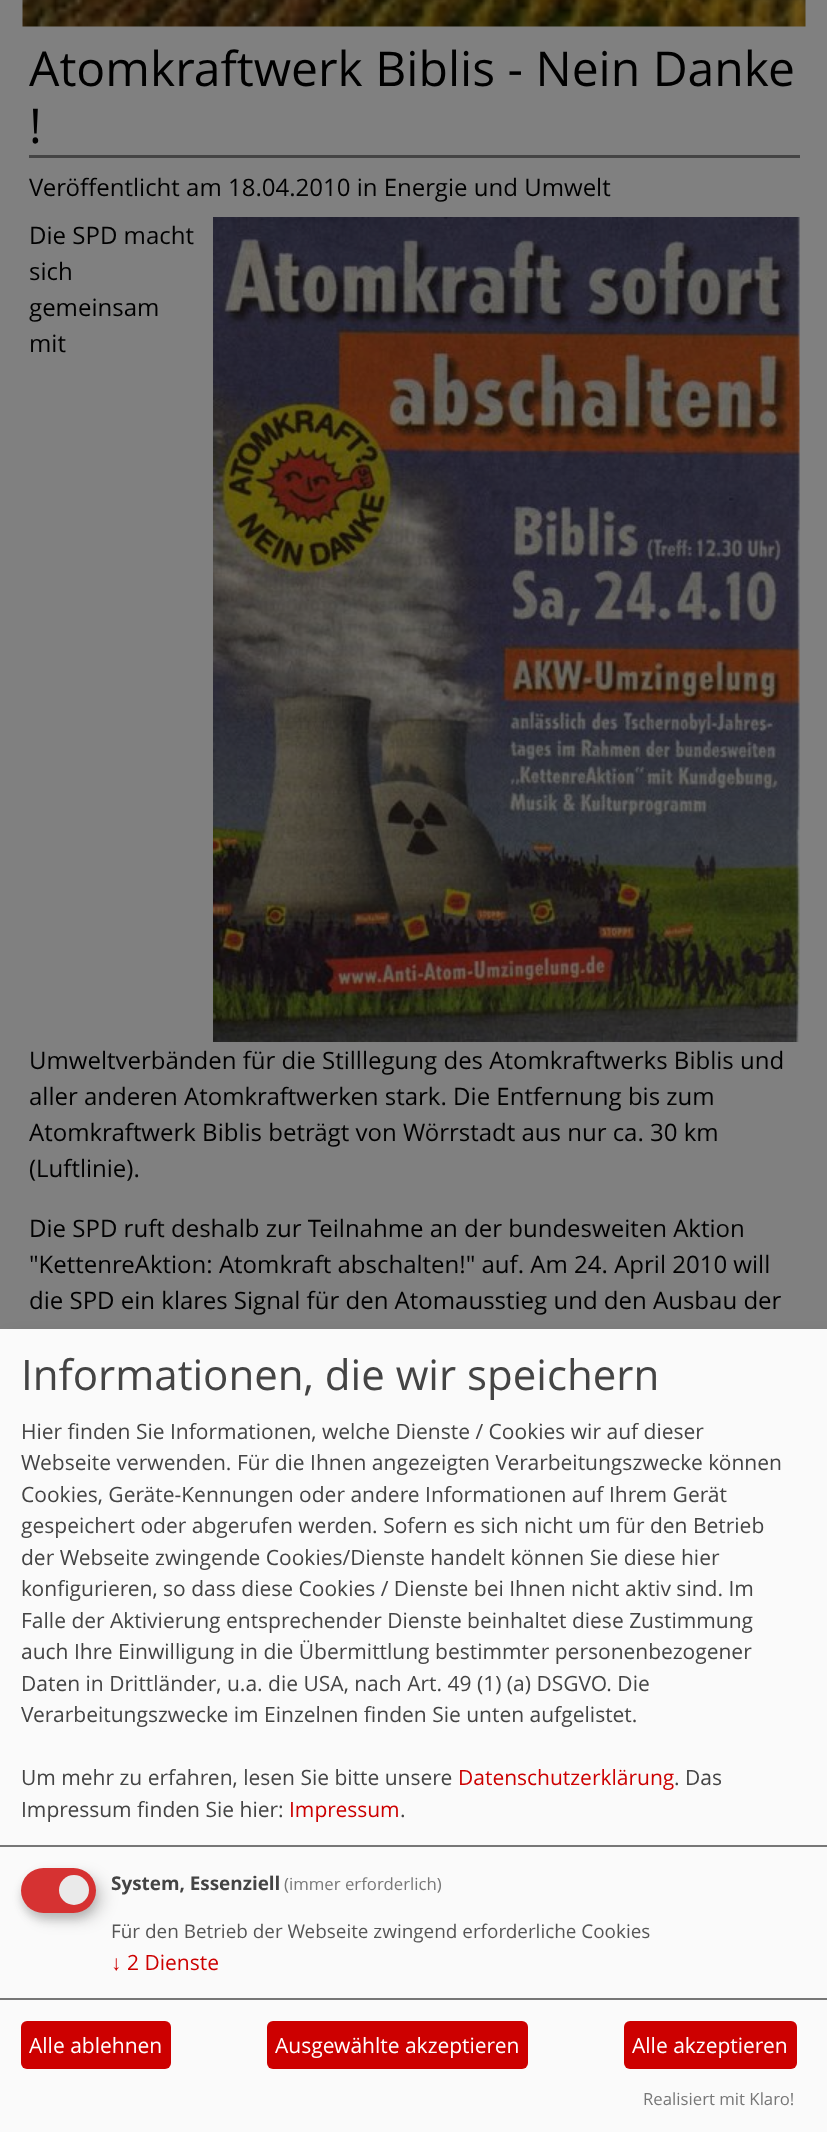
<!DOCTYPE html>
<meta charset="utf-8">
<style>body { margin: 0 } canvas { display: block }</style>
<canvas id="canvas" width="827" height="2132"></canvas>
<script type="module">
  const canvas = document.getElementById("canvas");
  const g = canvas.getContext("2d");
  g.miterLimit = 4;
  g.fontKerning = "normal";
  function drawText(s, x, y, [font, color]) {
    g.font = font;
    g.fillStyle = color;
    g.fillText(s, x, y);
  }
  function fillBox(x, y, w, h, color) {
    g.fillStyle = color;
    g.fillRect(x, y, w, h);
  }
  function fillRounded(x, y, w, h, r, color) {
    g.fillStyle = color;
    g.beginPath();
    g.roundRect(x, y, w, h, r);
    g.fill();
  }
  async function drawPicture(src, x, y, w, h) {
    const img = new Image();
    img.src = src;
    await img.decode();
    g.drawImage(img, x, y, w, h);
  }

  const s1 = ["48px Open Sans", "#000000"];
  const s2 = ["24px Open Sans", "#000000"];
  const s3 = ["42px Open Sans", "#444444"];
  const s4 = ["21px Open Sans", "#444444"];
  const s5 = ["21px Open Sans", "#CD0000"];
  const s6 = ["bold 18.9px Open Sans", "#444444"];
  const s7 = ["16.75px Open Sans", "#777777"];
  const s8 = ["18.9px Open Sans", "#555555"];
  const s9 = ["21px Liberation Sans", "#CD0000"];
  const s10 = ["21px Open Sans", "#FFFFFF"];

  fillBox(0, 0, 827, 2132, "#808080");
  await drawPicture("pic1.png", 22, 0, 784, 27);
  fillBox(29, 155, 771, 3, "#444444");
  drawText("Atomkraftwerk Biblis - Nein Danke", 29, 86, s1);
  drawText("!", 29, 143, s1);
  drawText("Veröffentlicht am 18.04.2010 in Energie und Umwelt", 29, 196, s2);
  await drawPicture("pic2.png", 213, 217, 587, 825);
  drawText("Die SPD macht", 29, 244, s2);
  drawText("sich", 29, 280, s2);
  drawText("gemeinsam", 29, 316, s2);
  drawText("mit", 29, 352, s2);
  drawText("Umweltverbänden für die Stilllegung des Atomkraftwerks Biblis und", 29, 1069, s2);
  drawText("aller anderen Atomkraftwerken stark. Die Entfernung bis zum", 29, 1105, s2);
  drawText("Atomkraftwerk Biblis beträgt von Wörrstadt aus nur ca. 30 km", 29, 1141, s2);
  drawText("(Luftlinie).", 29, 1177, s2);
  drawText("Die SPD ruft deshalb zur Teilnahme an der bundesweiten Aktion", 29, 1237, s2);
  drawText("\"KettenreAktion: Atomkraft abschalten!\" auf. Am 24. April 2010 will", 29, 1273, s2);
  drawText("die SPD ein klares Signal für den Atomausstieg und den Ausbau der", 29, 1309, s2);
  g.fillStyle = "rgba(0, 0, 0, 0.19)";
  g.filter = "blur(7.5px)";
  g.beginPath();
  g.rect(8, 1337, 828, 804);
  g.fill();
  g.filter = "none";
  fillBox(0, 1329, 827, 803, "#FAFAFA");
  fillBox(0, 1845, 827, 2, "#777777");
  drawText("Informationen, die wir speichern", 21, 1390, s3);
  drawText("Hier finden Sie Informationen, welche Dienste / Cookies wir auf dieser", 21, 1439, s4);
  drawText("Webseite verwenden. Für die Ihnen angezeigten Verarbeitungszwecke können", 21, 1470, s4);
  drawText("Cookies, Geräte-Kennungen oder andere Informationen auf Ihrem Gerät", 21, 1502, s4);
  drawText("gespeichert oder abgerufen werden. Sofern es sich nicht um für den Betrieb", 21, 1533, s4);
  drawText("der Webseite zwingende Cookies/Dienste handelt können Sie diese hier", 21, 1565, s4);
  drawText("konfigurieren, so dass diese Cookies / Dienste bei Ihnen nicht aktiv sind. Im", 21, 1596, s4);
  drawText("Falle der Aktivierung entsprechender Dienste beinhaltet diese Zustimmung", 21, 1628, s4);
  drawText("auch Ihre Einwilligung in die Übermittlung bestimmter personenbezogener", 21, 1659, s4);
  drawText("Daten in Drittländer, u.a. die USA, nach Art. 49 (1) (a) DSGVO. Die", 21, 1691, s4);
  drawText("Verarbeitungszwecke im Einzelnen finden Sie unten aufgelistet.", 21, 1722, s4);
  drawText("Um mehr zu erfahren, lesen Sie bitte unsere", 21, 1785, s4);
  drawText("Datenschutzerklärung", 458, 1785, s5);
  drawText(". Das", 674, 1785, s4);
  drawText("Impressum finden Sie hier:", 21, 1817, s4);
  drawText("Impressum", 289, 1817, s5);
  drawText(".", 400, 1817, s4);
  g.fillStyle = "rgba(0, 0, 0, 0.15)";
  g.filter = "blur(7.5px)";
  g.beginPath();
  g.roundRect(29, 1875, 75, 45, 22.5);
  g.fill();
  g.filter = "none";
  g.fillStyle = "rgba(50, 50, 50, 0.2)";
  g.filter = "blur(4.5px)";
  g.beginPath();
  g.roundRect(21, 1874, 75, 45, 22.5);
  g.fill();
  g.filter = "none";
  fillRounded(21, 1868, 75, 45, 22.5, "#D63232");
  g.fillStyle = "#EAEAEA";
  g.beginPath();
  g.arc(74, 1890, 15, 0, Math.PI * 2);
  g.fill();
  drawText("System, Essenziell", 111, 1890, s6);
  drawText("(immer erforderlich)", 284, 1890, s7);
  drawText("Für den Betrieb der Webseite zwingend erforderliche Cookies", 111, 1938, s8);
  drawText("↓", 111, 1970, s9);
  drawText("2 Dienste", 127, 1970, s5);
  fillBox(0, 1998, 827, 2, "#777777");
  fillRounded(21, 2021, 150, 48, 6, "#CD0000");
  drawText("Alle ablehnen", 29, 2053, s10);
  fillRounded(267, 2021, 261, 48, 6, "#CD0000");
  drawText("Ausgewählte akzeptieren", 275, 2053, s10);
  fillRounded(624, 2021, 173, 48, 6, "#CD0000");
  drawText("Alle akzeptieren", 632, 2053, s10);
  drawText("Realisiert mit Klaro!", 643, 2105, s7);
</script>
